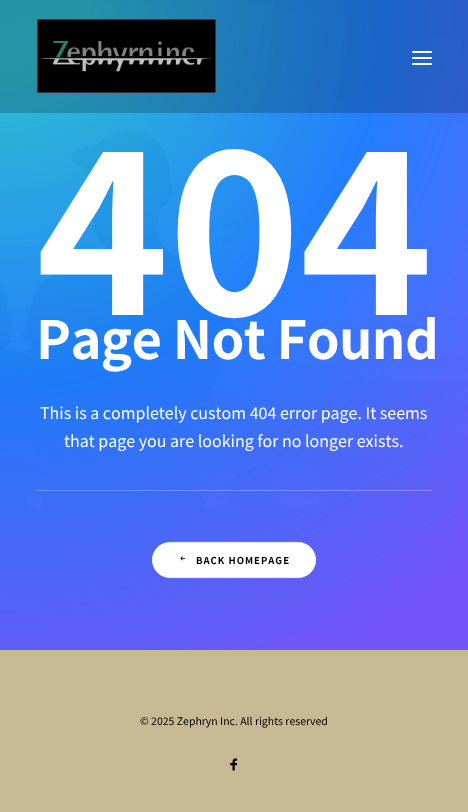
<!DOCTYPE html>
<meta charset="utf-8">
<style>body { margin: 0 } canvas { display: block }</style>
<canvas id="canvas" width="468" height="812"></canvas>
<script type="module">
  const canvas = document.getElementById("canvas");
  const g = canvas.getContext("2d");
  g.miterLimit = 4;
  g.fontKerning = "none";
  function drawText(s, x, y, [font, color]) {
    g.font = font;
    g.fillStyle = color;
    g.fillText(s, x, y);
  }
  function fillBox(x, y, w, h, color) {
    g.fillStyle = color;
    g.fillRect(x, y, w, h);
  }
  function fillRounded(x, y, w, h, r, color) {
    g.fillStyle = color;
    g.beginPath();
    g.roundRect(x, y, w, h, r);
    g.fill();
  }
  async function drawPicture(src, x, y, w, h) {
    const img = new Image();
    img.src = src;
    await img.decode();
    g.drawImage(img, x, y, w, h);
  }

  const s1 = ["bold 226px Noto Sans JP", "#FFFFFF"];
  const s2 = ["bold 52.5px Noto Sans JP", "#FFFFFF"];
  const s3 = ["16px Noto Sans JP", "#FFFFFF"];
  const s4 = ["bold 9.5px Noto Sans JP", "#000000"];
  const s5 = ["10.5px Noto Sans JP", "#000000"];

  fillBox(0, 0, 468, 812, "#FFFFFF");
  await drawPicture("pic2.png", 0, 0, 468, 650);
  fillBox(0, 0, 468, 113, "rgba(0, 0, 0, 0.2)");
  await drawPicture("pic1.png", 36, 18, 181, 76);
  fillRounded(412, 57, 20, 2, 1, "#FFFFFF");
  fillRounded(412, 51, 20, 2, 1, "#FFFFFF");
  fillRounded(412, 63, 20, 2, 1, "#FFFFFF");
  g.letterSpacing = "-1.5px";
  drawText("404", 36, 315, s1);
  g.letterSpacing = "-0.6px";
  drawText("Page Not Found", 36, 359, s2);
  g.letterSpacing = "0px";
  drawText("This is a completely custom 404 error page. It seems", 40, 419, s3);
  drawText("that page you are looking for no longer exists.", 64, 447, s3);
  fillBox(36, 490, 396, 1, "rgba(255, 255, 255, 0.25)");
  g.fillStyle = "#FFFFFF";
  g.beginPath();
  g.roundRect(152.4, 542.4, 163.2, 35.2, 17.6);
  g.fill();
  g.strokeStyle = "#FFFFFF";
  g.lineWidth = 0.8;
  g.stroke();
  await drawPicture("pic3.png", 180, 556, 6, 5);
  g.letterSpacing = "1px";
  drawText("BACK HOMEPAGE", 196, 564, s4);
  fillBox(0, 650, 468, 162, "#C7B993");
  g.letterSpacing = "0px";
  drawText("© 2025 Zephryn Inc. All rights reserved", 140, 725, s5);
  await drawPicture("pic4.png", 230, 758, 7, 13);
</script>
